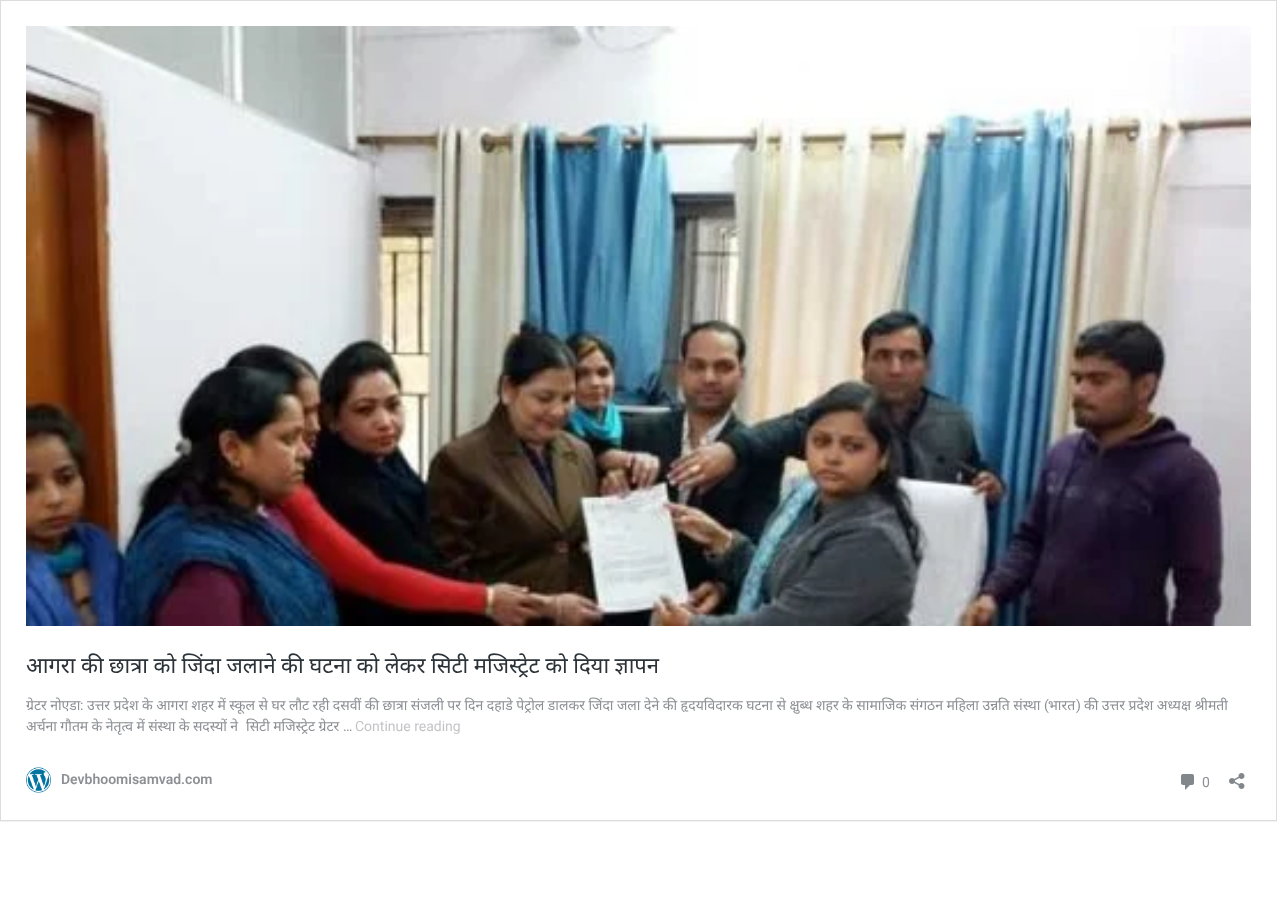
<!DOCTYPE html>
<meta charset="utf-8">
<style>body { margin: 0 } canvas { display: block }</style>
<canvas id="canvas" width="1277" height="910"></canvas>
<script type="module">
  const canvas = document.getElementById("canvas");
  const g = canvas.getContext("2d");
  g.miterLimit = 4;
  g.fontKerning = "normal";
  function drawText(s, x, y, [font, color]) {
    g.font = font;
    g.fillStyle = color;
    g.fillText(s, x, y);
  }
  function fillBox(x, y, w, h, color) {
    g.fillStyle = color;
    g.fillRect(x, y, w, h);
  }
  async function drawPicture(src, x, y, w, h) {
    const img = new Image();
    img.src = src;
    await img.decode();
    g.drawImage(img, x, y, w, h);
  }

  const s1 = ["22px Noto Sans", "#2C3338"];
  const s2 = ["14px Noto Sans", "#8C8F94"];
  const s3 = ["14px Roboto", "#8C8F94"];
  const s4 = ["14px Roboto", "#C3C4C7"];
  const s5 = ["600 14px Roboto", "#8C8F94"];

  fillBox(0, 0, 1277, 910, "#FFFFFF");
  g.save();
  g.beginPath();
  g.rect(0, 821, 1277, 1);
  g.clip();
  g.fillStyle = "rgba(0, 0, 0, 0.05)";
  g.filter = "blur(0.5px)";
  g.beginPath();
  g.rect(0, 1, 1277, 821);
  g.fill();
  g.filter = "none";
  g.restore();
  g.strokeStyle = "#DCDCDE";
  g.strokeRect(0.5, 0.5, 1276, 820);
  await drawPicture("pic1.png", 26, 26, 1225, 600);
  g.wordSpacing = "-0.25px";
  drawText("आगरा की छात्रा को जिंदा जलाने की घटना को लेकर सिटी मजिस्ट्रेट को दिया ज्ञापन", 26, 673, s1);
  g.wordSpacing = "-0.15px";
  drawText("ग्रेटर नोएडा", 26, 710, s2);
  drawText("उत्तर प्रदेश के आगरा शहर में स्कूल से घर लौट रही दसवीं की छात्रा संजली पर दिन दहाडे पेट्रोल डालकर जिंदा जला देने की हृदयविदारक घटना से क्षुब्ध शहर के सामाजिक संगठन महिला उन्नति संस्था", 87, 710, s2);
  g.wordSpacing = "0px";
  drawText("(", 1044, 710, s3);
  drawText("भारत", 1048, 710, s2);
  drawText(")", 1076, 710, s3);
  g.wordSpacing = "-0.15px";
  drawText("की उत्तर प्रदेश अध्यक्ष श्रीमती", 1084, 710, s2);
  g.wordSpacing = "0px";
  drawText(":", 80, 710, s3);
  g.wordSpacing = "-0.25px";
  drawText("अर्चना गौतम के नेतृत्व में संस्था के सदस्यों ने", 26, 731, s2);
  drawText("सिटी मजिस्ट्रेट ग्रेटर", 246, 731, s2);
  g.wordSpacing = "0px";
  drawText("…", 343, 731, s3);
  drawText("Continue reading", 355, 731, s4);
  await drawPicture("pic2.png", 26, 767, 25, 26);
  drawText("Devbhoomisamvad.com", 61, 784, s5);
  await drawPicture("pic3.png", 1181, 774, 13, 16);
  drawText("0", 1202, 787, s3);
  await drawPicture("pic4.png", 1229, 773, 16, 16);
</script>
